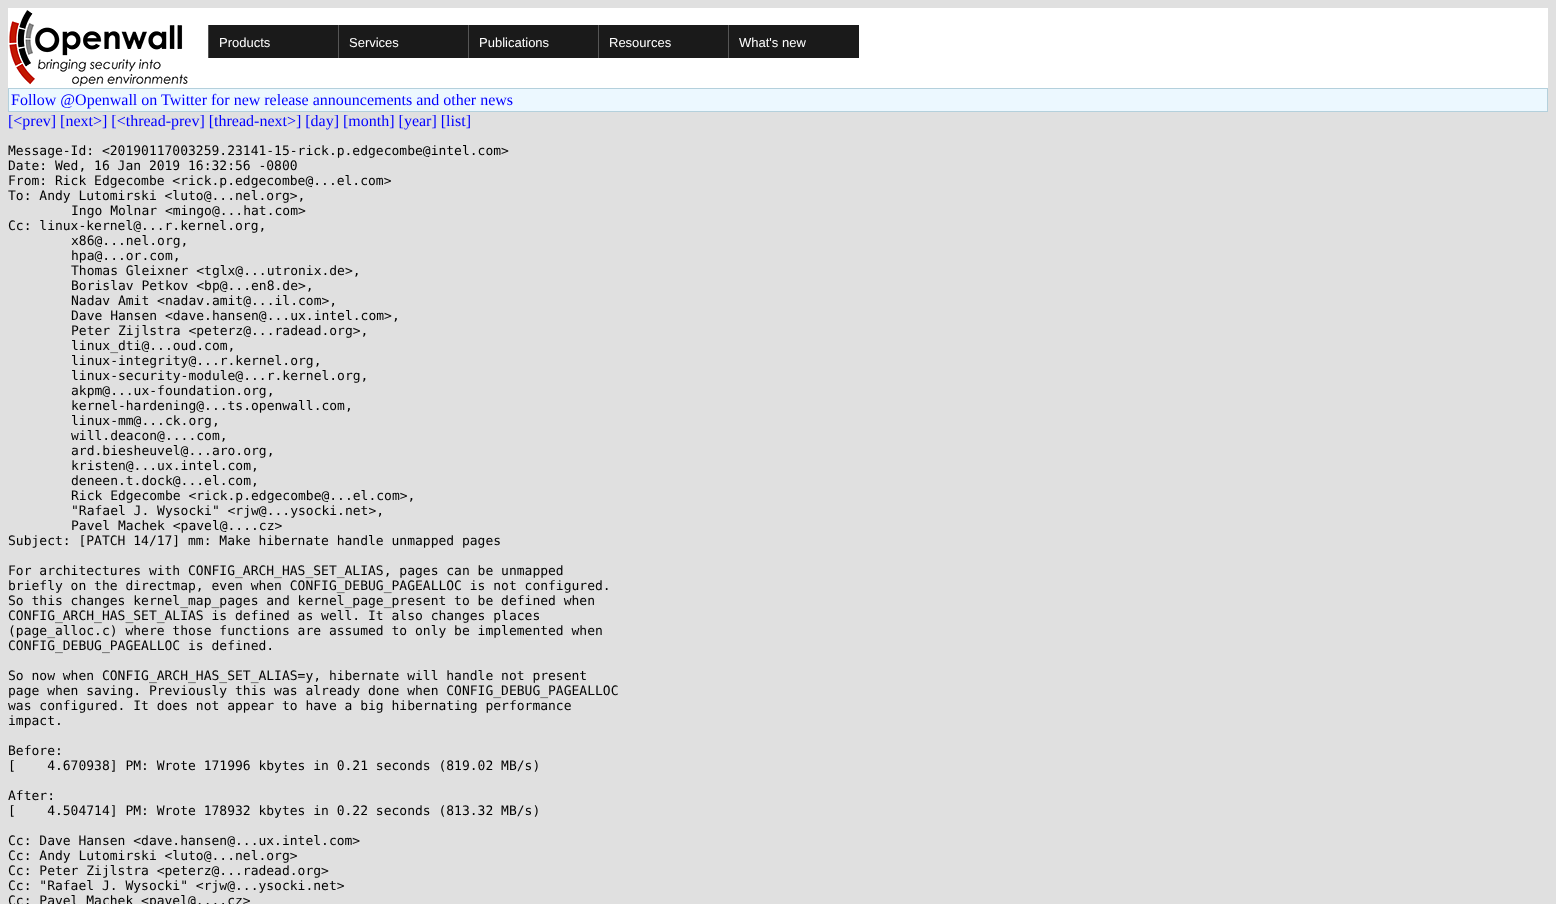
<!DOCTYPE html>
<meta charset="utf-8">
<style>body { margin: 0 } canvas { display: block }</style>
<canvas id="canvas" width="1556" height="904"></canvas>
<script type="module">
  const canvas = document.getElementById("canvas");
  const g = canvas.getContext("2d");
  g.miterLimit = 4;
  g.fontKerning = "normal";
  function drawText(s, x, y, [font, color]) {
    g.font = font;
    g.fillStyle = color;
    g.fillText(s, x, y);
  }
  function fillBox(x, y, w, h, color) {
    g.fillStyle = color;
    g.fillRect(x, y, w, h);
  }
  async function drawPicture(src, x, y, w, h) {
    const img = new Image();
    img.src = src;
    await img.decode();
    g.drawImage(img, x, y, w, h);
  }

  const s1 = ["13px Liberation Sans", "#FFFFFF"];
  const s2 = ["16px Liberation Serif", "#0000FF"];
  const s3 = ["13px DejaVu Sans Mono", "#000000"];

  fillBox(0, 0, 1556, 904, "#E0E0E0");
  fillBox(8, 8, 1540, 80, "#FFFFFF");
  await drawPicture("pic1.png", 9, 10, 179, 77);
  fillBox(209, 25, 129, 33, "#1A1A1A");
  fillBox(208, 25, 1, 33, "#555555");
  drawText("Products", 219, 47, s1);
  fillBox(339, 25, 129, 33, "#1A1A1A");
  fillBox(338, 25, 1, 33, "#555555");
  drawText("Services", 349, 47, s1);
  fillBox(469, 25, 129, 33, "#1A1A1A");
  fillBox(468, 25, 1, 33, "#555555");
  drawText("Publications", 479, 47, s1);
  fillBox(599, 25, 129, 33, "#1A1A1A");
  fillBox(598, 25, 1, 33, "#555555");
  drawText("Resources", 609, 47, s1);
  fillBox(729, 25, 130, 33, "#1A1A1A");
  fillBox(728, 25, 1, 33, "#555555");
  drawText("What's new", 739, 47, s1);
  fillBox(8, 88, 1540, 24, "#B4D0DC");
  fillBox(9, 89, 1538, 22, "#ECF8FF");
  drawText("Follow @Openwall on Twitter for new release announcements and other news", 11, 105, s2);
  drawText("[<prev] [next>] [<thread-prev] [thread-next>] [day] [month] [year] [list]", 8, 126, s2);
  drawText("Message-Id: <20190117003259.23141-15-rick.p.edgecombe@intel.com>", 8, 155, s3);
  drawText("Date: Wed, 16 Jan 2019 16:32:56 -0800", 8, 170, s3);
  drawText("From: Rick Edgecombe <rick.p.edgecombe@...el.com>", 8, 185, s3);
  drawText("To: Andy Lutomirski <luto@...nel.org>,", 8, 200, s3);
  drawText("Ingo Molnar <mingo@...hat.com>", 71, 215, s3);
  drawText("Cc: linux-kernel@...r.kernel.org,", 8, 230, s3);
  drawText("x86@...nel.org,", 71, 245, s3);
  drawText("hpa@...or.com,", 71, 260, s3);
  drawText("Thomas Gleixner <tglx@...utronix.de>,", 71, 275, s3);
  drawText("Borislav Petkov <bp@...en8.de>,", 71, 290, s3);
  drawText("Nadav Amit <nadav.amit@...il.com>,", 71, 305, s3);
  drawText("Dave Hansen <dave.hansen@...ux.intel.com>,", 71, 320, s3);
  drawText("Peter Zijlstra <peterz@...radead.org>,", 71, 335, s3);
  drawText("linux_dti@...oud.com,", 71, 350, s3);
  drawText("linux-integrity@...r.kernel.org,", 71, 365, s3);
  drawText("linux-security-module@...r.kernel.org,", 71, 380, s3);
  drawText("akpm@...ux-foundation.org,", 71, 395, s3);
  drawText("kernel-hardening@...ts.openwall.com,", 71, 410, s3);
  drawText("linux-mm@...ck.org,", 71, 425, s3);
  drawText("will.deacon@....com,", 71, 440, s3);
  drawText("ard.biesheuvel@...aro.org,", 71, 455, s3);
  drawText("kristen@...ux.intel.com,", 71, 470, s3);
  drawText("deneen.t.dock@...el.com,", 71, 485, s3);
  drawText("Rick Edgecombe <rick.p.edgecombe@...el.com>,", 71, 500, s3);
  drawText("\"Rafael J. Wysocki\" <rjw@...ysocki.net>,", 71, 515, s3);
  drawText("Pavel Machek <pavel@....cz>", 71, 530, s3);
  drawText("Subject: [PATCH 14/17] mm: Make hibernate handle unmapped pages", 8, 545, s3);
  drawText("For architectures with CONFIG_ARCH_HAS_SET_ALIAS, pages can be unmapped", 8, 575, s3);
  drawText("briefly on the directmap, even when CONFIG_DEBUG_PAGEALLOC is not configured.", 8, 590, s3);
  drawText("So this changes kernel_map_pages and kernel_page_present to be defined when", 8, 605, s3);
  drawText("CONFIG_ARCH_HAS_SET_ALIAS is defined as well. It also changes places", 8, 620, s3);
  drawText("(page_alloc.c) where those functions are assumed to only be implemented when", 8, 635, s3);
  drawText("CONFIG_DEBUG_PAGEALLOC is defined.", 8, 650, s3);
  drawText("So now when CONFIG_ARCH_HAS_SET_ALIAS=y, hibernate will handle not present", 8, 680, s3);
  drawText("page when saving. Previously this was already done when CONFIG_DEBUG_PAGEALLOC", 8, 695, s3);
  drawText("was configured. It does not appear to have a big hibernating performance", 8, 710, s3);
  drawText("impact.", 8, 725, s3);
  drawText("Before:", 8, 755, s3);
  drawText("[    4.670938] PM: Wrote 171996 kbytes in 0.21 seconds (819.02 MB/s)", 8, 770, s3);
  drawText("After:", 8, 800, s3);
  drawText("[    4.504714] PM: Wrote 178932 kbytes in 0.22 seconds (813.32 MB/s)", 8, 815, s3);
  drawText("Cc: Dave Hansen <dave.hansen@...ux.intel.com>", 8, 845, s3);
  drawText("Cc: Andy Lutomirski <luto@...nel.org>", 8, 860, s3);
  drawText("Cc: Peter Zijlstra <peterz@...radead.org>", 8, 875, s3);
  drawText("Cc: \"Rafael J. Wysocki\" <rjw@...ysocki.net>", 8, 890, s3);
  drawText("Cc: Pavel Machek <pavel@....cz>", 8, 905, s3);
</script>
